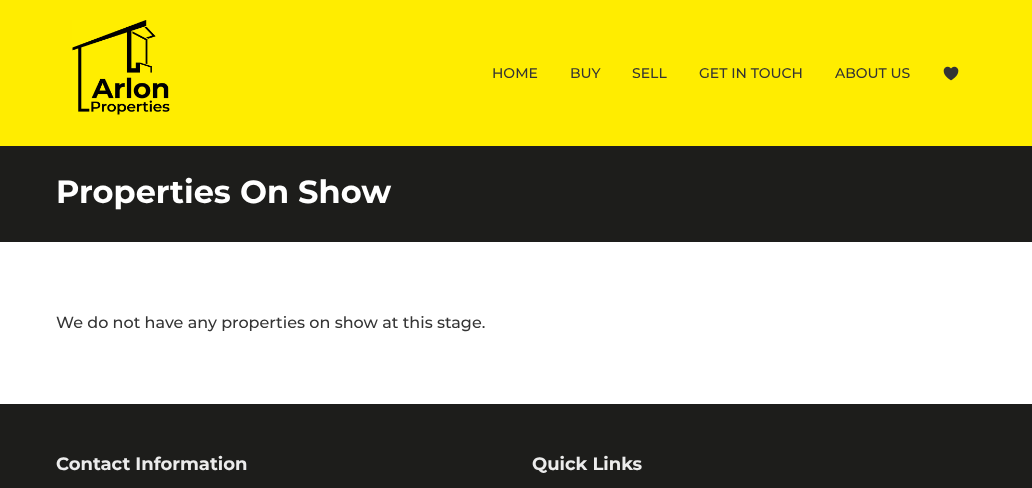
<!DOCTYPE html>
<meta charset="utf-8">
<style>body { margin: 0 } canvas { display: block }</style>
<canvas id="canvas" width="1032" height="488"></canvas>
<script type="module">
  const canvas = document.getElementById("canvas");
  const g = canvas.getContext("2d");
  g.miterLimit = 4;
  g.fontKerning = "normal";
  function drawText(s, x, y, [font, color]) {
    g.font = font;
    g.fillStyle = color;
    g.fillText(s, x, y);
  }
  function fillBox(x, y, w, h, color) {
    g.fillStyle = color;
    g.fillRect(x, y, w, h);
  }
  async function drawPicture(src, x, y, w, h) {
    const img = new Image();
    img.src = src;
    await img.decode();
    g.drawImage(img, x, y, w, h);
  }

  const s1 = ["500 14px Montserrat", "#343434"];
  const s2 = ["bold 32px Montserrat", "#FFFFFF"];
  const s3 = ["500 16px Montserrat", "#343434"];
  const s4 = ["bold 18px Montserrat", "#ECECEC"];

  fillBox(0, 0, 1032, 488, "#1D1D1B");
  fillBox(0, 0, 1032, 146, "#FFED00");
  await drawPicture("pic1.png", 72, 20, 98, 95);
  drawText("HOME", 492, 78, s1);
  drawText("BUY", 570, 78, s1);
  drawText("SELL", 632, 78, s1);
  drawText("GET IN TOUCH", 699, 78, s1);
  drawText("ABOUT US", 835, 78, s1);
  await drawPicture("pic2.png", 943, 66, 16, 15);
  drawText("Properties On Show", 56, 203, s2);
  fillBox(0, 242, 1032, 162, "#FFFFFF");
  drawText("We do not have any properties on show at this stage.", 56, 328, s3);
  drawText("Contact Information", 56, 470, s4);
  drawText("Quick Links", 532, 470, s4);
</script>
